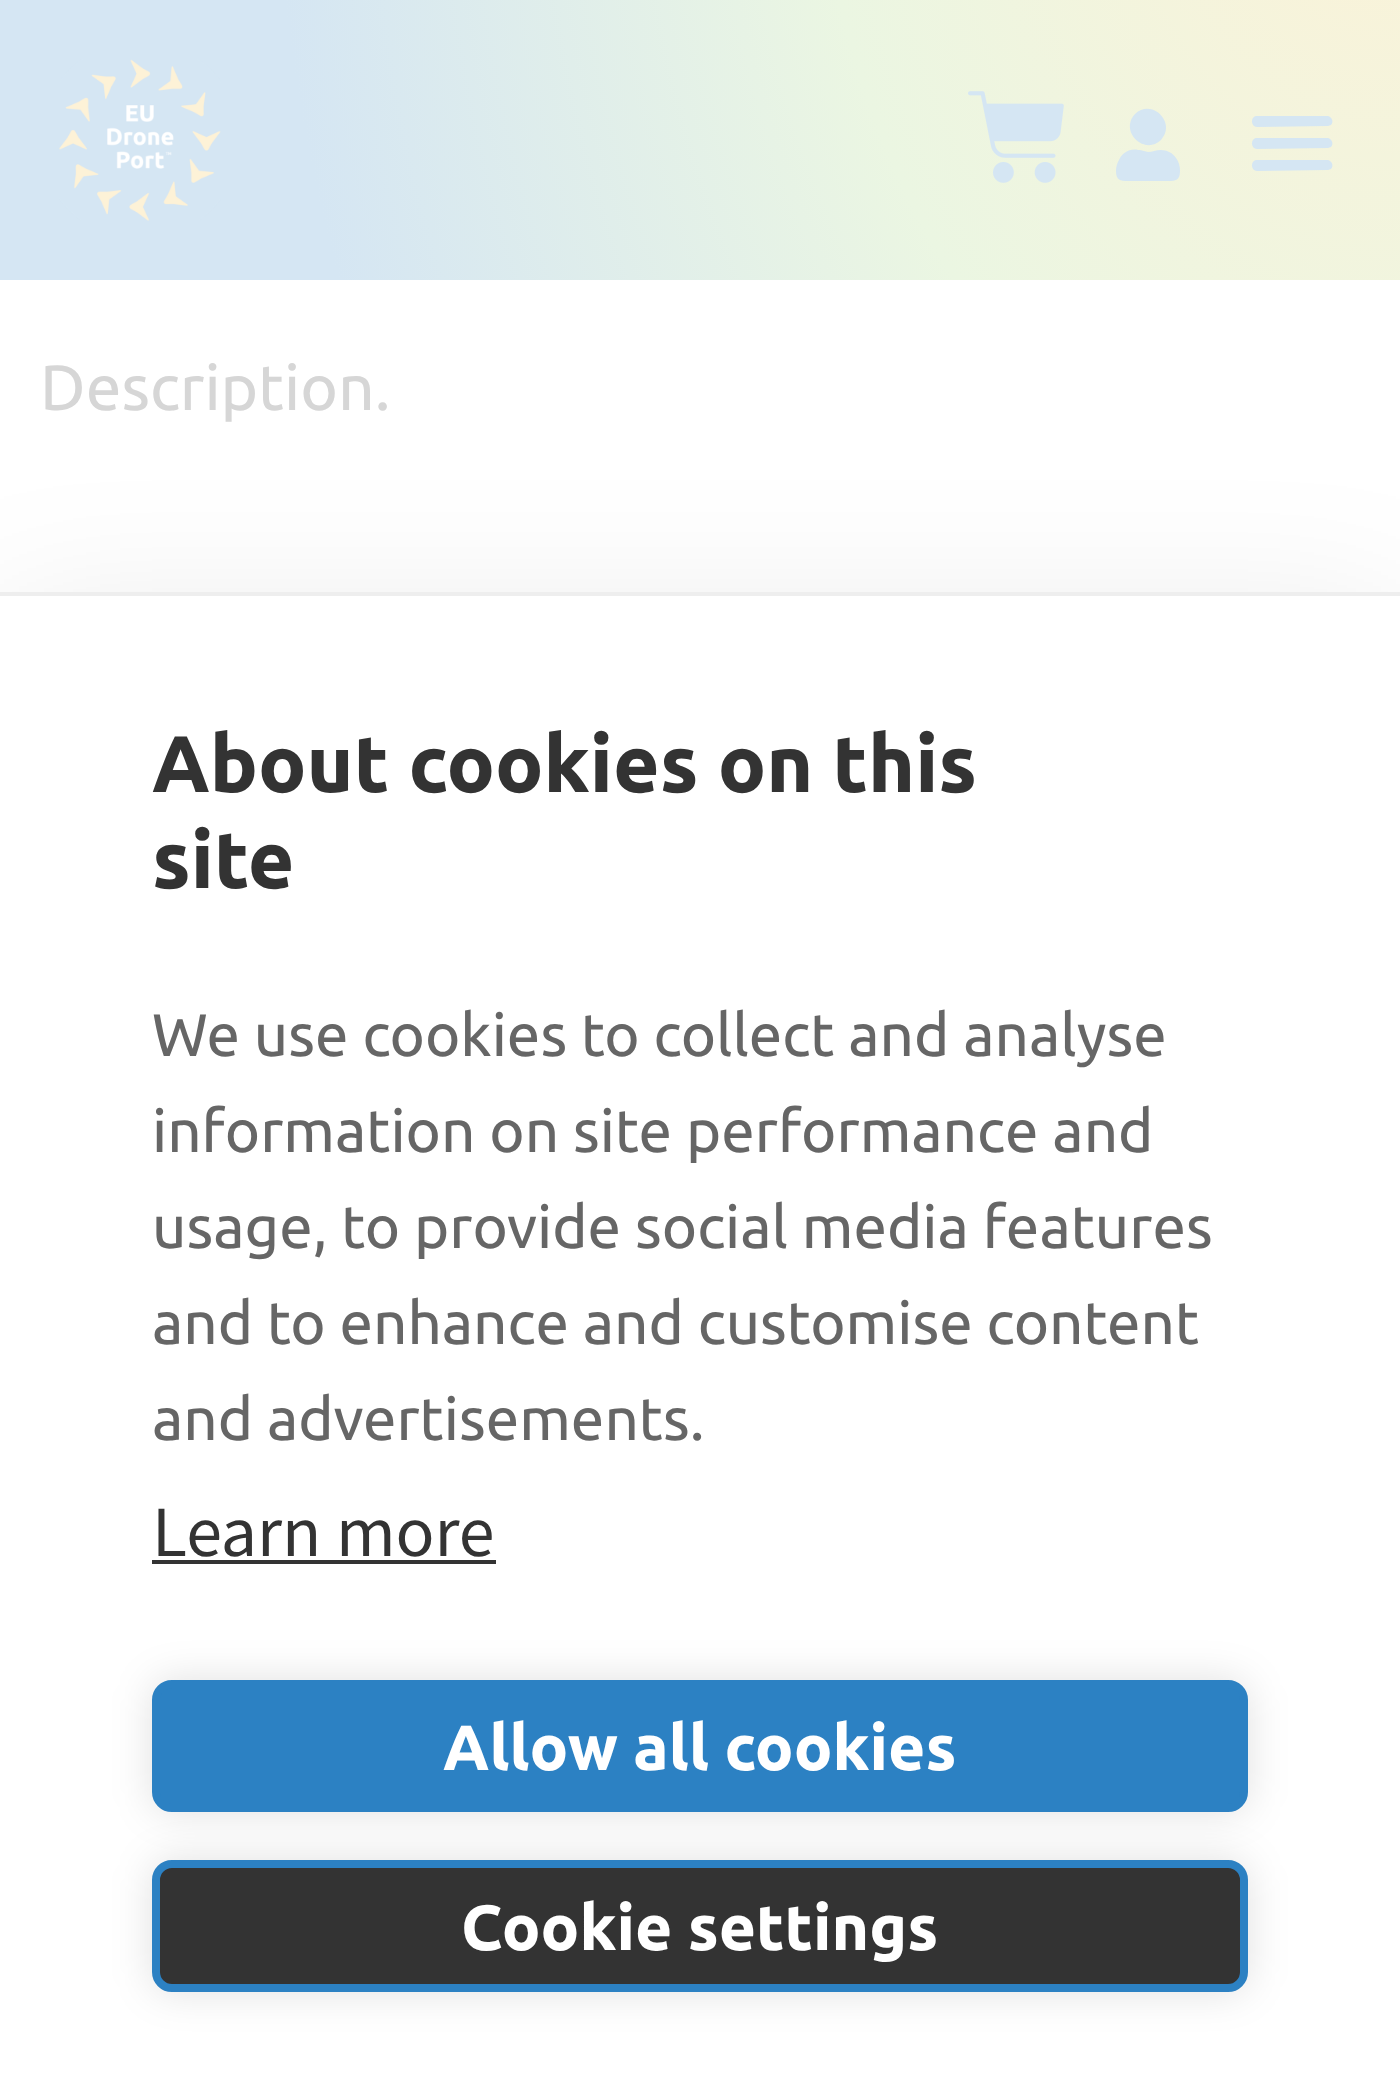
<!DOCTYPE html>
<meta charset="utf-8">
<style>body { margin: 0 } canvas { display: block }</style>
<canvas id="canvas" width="1400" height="2090"></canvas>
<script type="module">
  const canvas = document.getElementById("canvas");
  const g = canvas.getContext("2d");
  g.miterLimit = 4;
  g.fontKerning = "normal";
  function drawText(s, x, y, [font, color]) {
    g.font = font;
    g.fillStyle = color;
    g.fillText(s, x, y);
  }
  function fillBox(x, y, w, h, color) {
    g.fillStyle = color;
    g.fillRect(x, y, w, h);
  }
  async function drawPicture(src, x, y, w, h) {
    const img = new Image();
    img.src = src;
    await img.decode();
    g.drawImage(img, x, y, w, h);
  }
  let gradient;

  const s1 = ["64px Ubuntu", "#D6D6D6"];
  const s2 = ["bold 80px Ubuntu", "#333333"];
  const s3 = ["60px Ubuntu", "#666666"];
  const s4 = ["72px Source Sans Pro", "#333333"];
  const s5 = ["bold 64px Ubuntu", "#FFFFFF"];

  fillBox(0, 0, 1400, 2090, "#FFFFFF");
  gradient = g.createRadialGradient(1400, -176.15, 0, 1400, -176.15, 1129);
  gradient.addColorStop(0, "#FDF2D7");
  gradient.addColorStop(0.52, "#EBF6E2");
  gradient.addColorStop(1, "#D5E6F3");
  g.fillStyle = gradient;
  g.beginPath();
  g.rect(0, 0, 1400, 280);
  g.save();
  g.clip();
  g.scale(1, 1519 / 1129);
  g.fillRect(0, 0, 1400, 1554);
  g.restore();
  await drawPicture("pic1.png", 59, 59, 162, 162);
  await drawPicture("pic2.png", 968, 91, 96, 92);
  g.fillStyle = "#D5E6F3";
  g.beginPath();
  g.moveTo(1161, 140);
  g.bezierCurveTo(1144, 156, 1119, 131, 1135, 114);
  g.bezierCurveTo(1152, 98, 1177, 123, 1161, 140);
  g.closePath();
  g.moveTo(1161, 150);
  g.bezierCurveTo(1167, 150, 1173, 153, 1176, 158);
  g.bezierCurveTo(1179, 162, 1180, 166, 1180, 171);
  g.bezierCurveTo(1180, 182, 1174, 181, 1164, 181);
  g.lineTo(1132, 181);
  g.bezierCurveTo(1122, 181, 1116, 182, 1116, 171);
  g.bezierCurveTo(1116, 167, 1117, 163, 1119, 160);
  g.bezierCurveTo(1122, 153, 1130, 148, 1138, 150);
  g.lineTo(1140, 150);
  g.lineTo(1148, 152);
  g.bezierCurveTo(1152, 152, 1156, 150, 1161, 150);
  g.closePath();
  g.fill();
  g.beginPath();
  g.moveTo(1257, 127);
  g.lineTo(1328, 126);
  g.lineTo(1331, 125);
  g.bezierCurveTo(1334, 122, 1332, 117, 1328, 116);
  g.lineTo(1256, 116);
  g.bezierCurveTo(1250, 117, 1251, 127, 1257, 127);
  g.closePath();
  g.moveTo(1257, 149);
  g.lineTo(1328, 148);
  g.lineTo(1331, 147);
  g.bezierCurveTo(1334, 144, 1332, 139, 1328, 138);
  g.lineTo(1256, 138);
  g.bezierCurveTo(1250, 139, 1251, 149, 1257, 149);
  g.closePath();
  g.moveTo(1257, 171);
  g.lineTo(1328, 170);
  g.lineTo(1331, 169);
  g.bezierCurveTo(1334, 166, 1332, 161, 1328, 160);
  g.lineTo(1256, 160);
  g.bezierCurveTo(1250, 161, 1251, 171, 1257, 171);
  g.closePath();
  g.fill();
  drawText("Description.", 40, 410, s1);
  g.fillStyle = "rgba(0, 0, 0, 0.1)";
  g.filter = "blur(80px)";
  g.beginPath();
  g.rect(0, 632, 1400, 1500);
  g.fill();
  g.filter = "none";
  fillBox(0, 596, 1400, 1494, "#FFFFFF");
  fillBox(0, 592, 1400, 4, "#EEEEEE");
  drawText("About cookies on this", 152, 792, s2);
  drawText("site", 152, 888, s2);
  drawText("We use cookies to collect and analyse", 152, 1056, s3);
  drawText("information on site performance and", 152, 1152, s3);
  drawText("usage, to provide social media features", 152, 1248, s3);
  drawText("and to enhance and customise content", 152, 1344, s3);
  drawText("and advertisements.", 152, 1440, s3);
  drawText("Learn more", 152, 1556, s4);
  fillBox(152, 1560, 344, 4, "#333333");
  g.fillStyle = "rgba(0, 0, 0, 0.12)";
  g.filter = "blur(20px)";
  g.beginPath();
  g.roundRect(152, 1680, 1096, 132, 20);
  g.fill();
  g.filter = "none";
  g.fillStyle = "#2C81C3";
  g.beginPath();
  g.roundRect(156, 1684, 1088, 124, 16);
  g.fill();
  g.strokeStyle = "#2C81C3";
  g.lineWidth = 8;
  g.stroke();
  drawText("Allow all cookies", 443, 1770, s5);
  g.fillStyle = "rgba(0, 0, 0, 0.12)";
  g.filter = "blur(20px)";
  g.beginPath();
  g.roundRect(152, 1860, 1096, 132, 20);
  g.fill();
  g.filter = "none";
  g.fillStyle = "#333333";
  g.beginPath();
  g.roundRect(156, 1864, 1088, 124, 16);
  g.fill();
  g.stroke();
  drawText("Cookie settings", 461, 1950, s5);
</script>
